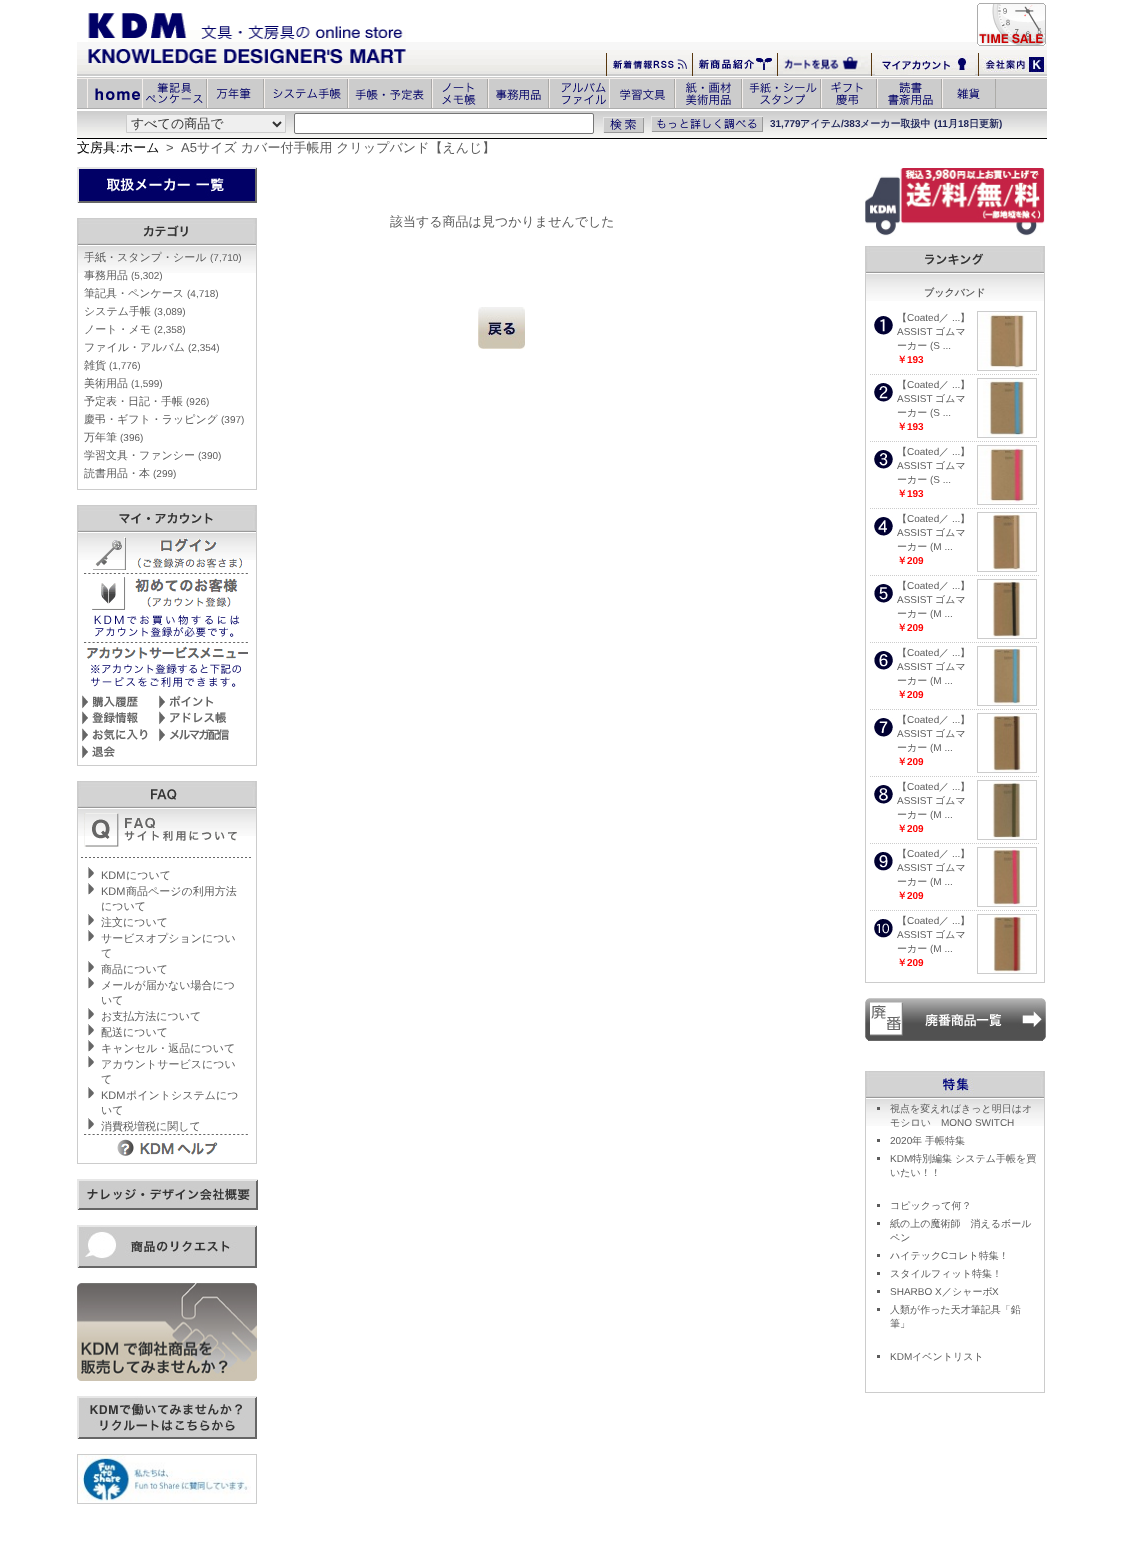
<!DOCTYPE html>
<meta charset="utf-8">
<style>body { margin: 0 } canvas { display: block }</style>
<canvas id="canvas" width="1123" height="1552"></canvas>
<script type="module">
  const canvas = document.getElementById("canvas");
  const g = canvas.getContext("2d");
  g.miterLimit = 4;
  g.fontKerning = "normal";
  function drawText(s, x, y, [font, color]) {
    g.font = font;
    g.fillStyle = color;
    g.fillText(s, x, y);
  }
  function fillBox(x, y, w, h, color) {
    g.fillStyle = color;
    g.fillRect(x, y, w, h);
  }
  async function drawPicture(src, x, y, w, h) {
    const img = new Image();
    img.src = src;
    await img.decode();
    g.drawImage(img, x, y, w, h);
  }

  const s1 = ["500 13px WenQuanYi Zen Hei", "#333333"];
  const s2 = ["bold 10px Liberation Sans", "#1C2357"];
  const s3 = ["bold 10px WenQuanYi Zen Hei", "#1C2357"];
  const s4 = ["500 13px WenQuanYi Zen Hei", "#000000"];
  const s5 = ["13px Liberation Sans", "#5C5C5C"];
  const s6 = ["500 13px WenQuanYi Zen Hei", "#5C5C5C"];
  const s7 = ["13px Liberation Sans", "#000000"];
  const s8 = ["500 11px WenQuanYi Zen Hei", "#5C5C5C"];
  const s9 = ["10px Liberation Sans", "#5C5C5C"];
  const s10 = ["11px Liberation Sans", "#5C5C5C"];
  const s11 = ["bold 10px WenQuanYi Zen Hei", "#5C5C5C"];
  const s12 = ["500 10px WenQuanYi Zen Hei", "#5C5C5C"];
  const s13 = ["bold 10px WenQuanYi Zen Hei", "#FF0000"];
  const s14 = ["bold 10px Liberation Sans", "#FF0000"];

  fillBox(0, 0, 1123, 1552, "#FFFFFF");
  await drawPicture("pic1.png", 77, 42, 970, 34);
  await drawPicture("pic2.png", 88, 13, 318, 51);
  await drawPicture("pic3.png", 977, 3, 69, 43);
  fillBox(606, 53, 1, 24, "#58370E");
  await drawPicture("pic4.png", 610, 59, 79, 13);
  fillBox(692, 53, 1, 24, "#58370E");
  await drawPicture("pic5.png", 696, 55, 78, 19);
  fillBox(777, 53, 1, 24, "#58370E");
  await drawPicture("pic6.png", 783, 55, 85, 19);
  fillBox(871, 53, 1, 24, "#58370E");
  await drawPicture("pic7.png", 875, 55, 100, 20);
  fillBox(978, 53, 1, 24, "#58370E");
  await drawPicture("pic8.png", 982, 57, 62, 15);
  await drawPicture("pic9.png", 77, 76, 970, 33);
  await drawPicture("pic10.png", 87, 79, 53, 29);
  await drawPicture("pic11.png", 142, 79, 65, 29);
  await drawPicture("pic12.png", 207, 79, 57, 29);
  await drawPicture("pic13.png", 264, 79, 84, 29);
  await drawPicture("pic14.png", 348, 79, 84, 29);
  await drawPicture("pic15.png", 432, 79, 56, 29);
  await drawPicture("pic16.png", 488, 79, 61, 29);
  await drawPicture("pic17.png", 549, 79, 57, 29);
  await drawPicture("pic18.png", 609, 79, 66, 29);
  await drawPicture("pic19.png", 675, 79, 67, 29);
  await drawPicture("pic20.png", 742, 79, 79, 29);
  await drawPicture("pic21.png", 821, 79, 56, 29);
  await drawPicture("pic22.png", 877, 79, 65, 29);
  await drawPicture("pic23.png", 942, 79, 54, 29);
  await drawPicture("pic24.png", 77, 111, 970, 27);
  fillBox(77, 138, 970, 1, "#000000");
  g.fillStyle = "#EFEFEF";
  g.beginPath();
  g.rect(126.5, 114.5, 159, 18);
  g.fill();
  g.strokeStyle = "#CCCCCC";
  g.stroke();
  g.beginPath();
  g.moveTo(273, 122);
  g.lineTo(277, 126);
  g.lineTo(281, 122);
  g.strokeStyle = "#333333";
  g.lineWidth = 2;
  g.stroke();
  drawText("すべての商品で", 131, 128, s1);
  g.fillStyle = "#FFFFFF";
  g.beginPath();
  g.roundRect(294.5, 113.5, 299, 20, 1.5);
  g.fill();
  g.strokeStyle = "#767676";
  g.lineWidth = 1;
  g.stroke();
  await drawPicture("pic25.png", 603, 117, 41, 16);
  await drawPicture("pic26.png", 651, 116, 112, 16);
  drawText("31,779", 770, 127, s2);
  drawText("アイテム", 800, 127, s3);
  drawText("/383", 841, 127, s2);
  drawText("メーカー取扱中", 860, 127, s3);
  drawText("(11", 934, 127, s2);
  drawText("月", 948, 127, s3);
  drawText("18", 958, 127, s2);
  drawText("日更新", 969, 127, s3);
  drawText(")", 999, 127, s2);
  drawText("文房具 ホーム", 77, 152, s4);
  drawText(">", 166, 152, s5);
  drawText("A5", 181, 152, s5);
  drawText("サイズ カバー付手帳用 クリップバンド【えんじ】", 197, 152, s6);
  drawText(":", 116, 152, s7);
  drawText("該当する商品は見つかりませんでした", 390, 226, s6);
  await drawPicture("pic27.png", 478, 307, 47, 42);
  await drawPicture("pic28.png", 77, 167, 180, 36);
  await drawPicture("pic29.png", 78, 218, 2, 27);
  fillBox(77, 218, 1, 27, "#CCCCCC");
  await drawPicture("pic30.png", 80, 218, 173, 27);
  await drawPicture("pic31.png", 143, 225, 45, 12);
  await drawPicture("pic32.png", 253, 218, 3, 27);
  fillBox(256, 218, 1, 272, "#CCCCCC");
  await drawPicture("pic33.png", 78, 246, 2, 27);
  fillBox(77, 489, 180, 1, "#CCCCCC");
  fillBox(77, 245, 1, 245, "#CCCCCC");
  await drawPicture("pic34.png", 80, 246, 173, 27);
  drawText("手紙・スタンプ・シール", 84, 261, s8);
  drawText("(7,710)", 210, 261, s9);
  drawText("事務用品", 84, 279, s8);
  drawText("(5,302)", 131, 279, s9);
  drawText("筆記具・ペンケース", 84, 297, s8);
  drawText("(4,718)", 187, 297, s9);
  drawText("システム手帳", 84, 315, s8);
  drawText("(3,089)", 154, 315, s9);
  drawText("ノート・メモ", 84, 333, s8);
  drawText("(2,358)", 154, 333, s9);
  drawText("ファイル・アルバム", 84, 351, s8);
  drawText("(2,354)", 188, 351, s9);
  drawText("雑貨", 84, 369, s8);
  drawText("(1,776)", 109, 369, s9);
  drawText("美術用品", 84, 387, s8);
  drawText("(1,599)", 131, 387, s9);
  drawText("予定表・日記・手帳", 84, 405, s8);
  drawText("(926)", 186, 405, s9);
  drawText("慶弔・ギフト・ラッピング", 84, 423, s8);
  drawText("(397)", 221, 423, s9);
  drawText("万年筆", 84, 441, s8);
  drawText("(396)", 120, 441, s9);
  drawText("学習文具・ファンシー", 84, 459, s8);
  drawText("(390)", 198, 459, s9);
  drawText("読書用品・本", 84, 477, s8);
  drawText("(299)", 153, 477, s9);
  await drawPicture("pic35.png", 253, 246, 3, 27);
  await drawPicture("pic29.png", 78, 505, 2, 27);
  fillBox(77, 505, 1, 27, "#CCCCCC");
  await drawPicture("pic30.png", 80, 505, 173, 27);
  await drawPicture("pic36.png", 119, 513, 94, 11);
  await drawPicture("pic32.png", 253, 505, 3, 27);
  fillBox(256, 505, 1, 261, "#CCCCCC");
  await drawPicture("pic33.png", 78, 533, 2, 27);
  fillBox(77, 765, 180, 1, "#CCCCCC");
  fillBox(77, 532, 1, 234, "#CCCCCC");
  await drawPicture("pic34.png", 80, 533, 173, 27);
  await drawPicture("pic37.png", 93, 537, 149, 33);
  await drawPicture("pic38.png", 84, 573, 164, 1);
  await drawPicture("pic39.png", 92, 577, 146, 33);
  await drawPicture("pic40.png", 94, 615, 146, 22);
  await drawPicture("pic38.png", 84, 642, 164, 1);
  await drawPicture("pic41.png", 86, 646, 162, 13);
  await drawPicture("pic42.png", 91, 664, 150, 23);
  await drawPicture("pic43.png", 82, 695, 56, 14);
  await drawPicture("pic44.png", 159, 695, 55, 14);
  await drawPicture("pic45.png", 82, 711, 56, 14);
  await drawPicture("pic46.png", 159, 711, 68, 14);
  await drawPicture("pic47.png", 82, 728, 66, 14);
  await drawPicture("pic48.png", 159, 728, 70, 14);
  await drawPicture("pic49.png", 82, 745, 33, 14);
  await drawPicture("pic35.png", 253, 533, 3, 27);
  await drawPicture("pic50.png", 78, 781, 3, 27);
  fillBox(77, 781, 1, 27, "#CCCCCC");
  await drawPicture("pic51.png", 81, 781, 171, 27);
  await drawPicture("pic52.png", 151, 789, 26, 11);
  await drawPicture("pic53.png", 252, 781, 4, 27);
  fillBox(256, 781, 1, 383, "#CCCCCC");
  await drawPicture("pic35.png", 78, 809, 3, 27);
  fillBox(77, 1163, 180, 1, "#CCCCCC");
  fillBox(77, 808, 1, 356, "#CCCCCC");
  await drawPicture("pic54.png", 252, 809, 4, 27);
  await drawPicture("pic55.png", 81, 809, 171, 27);
  await drawPicture("pic56.png", 84, 813, 153, 34);
  await drawPicture("pic57.png", 81, 857, 170, 1);
  await drawPicture("pic58.png", 88, 867, 6, 12);
  drawText("KDM", 101, 879, s10);
  drawText("について", 126, 879, s8);
  await drawPicture("pic58.png", 88, 883, 6, 12);
  drawText("KDM", 101, 895, s10);
  drawText("商品ページの利用方法", 126, 895, s8);
  drawText("について", 101, 910, s8);
  await drawPicture("pic58.png", 88, 914, 6, 12);
  drawText("注文について", 101, 926, s8);
  await drawPicture("pic58.png", 88, 930, 6, 12);
  drawText("サービスオプションについ", 101, 942, s8);
  drawText("て", 101, 957, s8);
  await drawPicture("pic58.png", 88, 961, 6, 12);
  drawText("商品について", 101, 973, s8);
  await drawPicture("pic58.png", 88, 977, 6, 12);
  drawText("メールが届かない場合につ", 101, 989, s8);
  drawText("いて", 101, 1004, s8);
  await drawPicture("pic58.png", 88, 1008, 6, 12);
  drawText("お支払方法について", 101, 1020, s8);
  await drawPicture("pic58.png", 88, 1024, 6, 12);
  drawText("配送について", 101, 1036, s8);
  await drawPicture("pic58.png", 88, 1040, 6, 12);
  drawText("キャンセル・返品について", 101, 1052, s8);
  await drawPicture("pic58.png", 88, 1056, 6, 12);
  drawText("アカウントサービスについ", 101, 1068, s8);
  drawText("て", 101, 1083, s8);
  await drawPicture("pic58.png", 88, 1087, 6, 12);
  drawText("KDM", 101, 1099, s10);
  drawText("ポイントシステムにつ", 126, 1099, s8);
  drawText("いて", 101, 1114, s8);
  await drawPicture("pic58.png", 88, 1118, 6, 12);
  drawText("消費税増税に関して", 101, 1130, s8);
  await drawPicture("pic38.png", 84, 1134, 164, 1);
  await drawPicture("pic59.png", 117, 1139, 101, 17);
  await drawPicture("pic60.png", 77, 1179, 181, 31);
  await drawPicture("pic61.png", 77, 1225, 180, 43);
  await drawPicture("pic62.png", 77, 1283, 180, 98);
  await drawPicture("pic63.png", 77, 1396, 180, 43);
  g.strokeStyle = "#CCCCCC";
  g.strokeRect(77.5, 1454.5, 179, 49);
  await drawPicture("pic64.png", 78, 1455, 173, 47);
  await drawPicture("pic65.png", 865, 168, 180, 68);
  await drawPicture("pic66.png", 866, 246, 4, 27);
  fillBox(865, 246, 1, 27, "#CCCCCC");
  await drawPicture("pic67.png", 870, 246, 170, 27);
  await drawPicture("pic68.png", 921, 253, 63, 12);
  await drawPicture("pic53.png", 1040, 246, 4, 27);
  fillBox(1044, 246, 1, 737, "#CCCCCC");
  await drawPicture("pic54.png", 866, 274, 4, 27);
  fillBox(865, 982, 180, 1, "#CCCCCC");
  fillBox(865, 273, 1, 710, "#CCCCCC");
  await drawPicture("pic69.png", 870, 274, 170, 27);
  drawText("ブックバンド", 924, 296, s11);
  await drawPicture("pic70.png", 874, 316, 19, 19);
  drawText("【", 897, 321, s12);
  drawText("Coated", 907, 321, s9);
  drawText("／", 939, 321, s12);
  drawText("...", 952, 321, s9);
  drawText("】", 960, 321, s12);
  drawText("ASSIST", 897, 335, s9);
  drawText("ゴムマ", 935, 335, s12);
  drawText("ーカー", 897, 349, s12);
  drawText("(S ...", 930, 349, s9);
  drawText("￥", 897, 363, s13);
  drawText("193", 907, 363, s14);
  g.strokeRect(977.5, 311.5, 59, 59);
  await drawPicture("pic71.png", 978, 312, 47, 57);
  g.beginPath();
  g.moveTo(870, 374.5);
  g.lineTo(1040, 374.5);
  g.setLineDash([1, 1]);
  g.stroke();
  await drawPicture("pic72.png", 874, 383, 19, 19);
  drawText("【", 897, 388, s12);
  drawText("Coated", 907, 388, s9);
  drawText("／", 939, 388, s12);
  drawText("...", 952, 388, s9);
  drawText("】", 960, 388, s12);
  drawText("ASSIST", 897, 402, s9);
  drawText("ゴムマ", 935, 402, s12);
  drawText("ーカー", 897, 416, s12);
  drawText("(S ...", 930, 416, s9);
  drawText("￥", 897, 430, s13);
  drawText("193", 907, 430, s14);
  g.setLineDash([]);
  g.strokeRect(977.5, 378.5, 59, 59);
  await drawPicture("pic73.png", 983, 379, 42, 58);
  g.beginPath();
  g.moveTo(870, 441.5);
  g.lineTo(1040, 441.5);
  g.setLineDash([1, 1]);
  g.stroke();
  await drawPicture("pic74.png", 874, 450, 19, 19);
  drawText("【", 897, 455, s12);
  drawText("Coated", 907, 455, s9);
  drawText("／", 939, 455, s12);
  drawText("...", 952, 455, s9);
  drawText("】", 960, 455, s12);
  drawText("ASSIST", 897, 469, s9);
  drawText("ゴムマ", 935, 469, s12);
  drawText("ーカー", 897, 483, s12);
  drawText("(S ...", 930, 483, s9);
  drawText("￥", 897, 497, s13);
  drawText("193", 907, 497, s14);
  g.setLineDash([]);
  g.strokeRect(977.5, 445.5, 59, 59);
  await drawPicture("pic75.png", 978, 446, 47, 57);
  g.beginPath();
  g.moveTo(870, 508.5);
  g.lineTo(1040, 508.5);
  g.setLineDash([1, 1]);
  g.stroke();
  await drawPicture("pic76.png", 874, 517, 19, 19);
  drawText("【", 897, 522, s12);
  drawText("Coated", 907, 522, s9);
  drawText("／", 939, 522, s12);
  drawText("...", 952, 522, s9);
  drawText("】", 960, 522, s12);
  drawText("ASSIST", 897, 536, s9);
  drawText("ゴムマ", 935, 536, s12);
  drawText("ーカー", 897, 550, s12);
  drawText("(M ...", 930, 550, s9);
  drawText("￥", 897, 564, s13);
  drawText("209", 907, 564, s14);
  g.setLineDash([]);
  g.strokeRect(977.5, 512.5, 59, 59);
  await drawPicture("pic77.png", 992, 513, 33, 58);
  g.beginPath();
  g.moveTo(870, 575.5);
  g.lineTo(1040, 575.5);
  g.setLineDash([1, 1]);
  g.stroke();
  await drawPicture("pic78.png", 874, 584, 19, 19);
  drawText("【", 897, 589, s12);
  drawText("Coated", 907, 589, s9);
  drawText("／", 939, 589, s12);
  drawText("...", 952, 589, s9);
  drawText("】", 960, 589, s12);
  drawText("ASSIST", 897, 603, s9);
  drawText("ゴムマ", 935, 603, s12);
  drawText("ーカー", 897, 617, s12);
  drawText("(M ...", 930, 617, s9);
  drawText("￥", 897, 631, s13);
  drawText("209", 907, 631, s14);
  g.setLineDash([]);
  g.strokeRect(977.5, 579.5, 59, 59);
  await drawPicture("pic79.png", 992, 580, 32, 58);
  g.beginPath();
  g.moveTo(870, 642.5);
  g.lineTo(1040, 642.5);
  g.setLineDash([1, 1]);
  g.stroke();
  await drawPicture("pic80.png", 874, 651, 19, 19);
  drawText("【", 897, 656, s12);
  drawText("Coated", 907, 656, s9);
  drawText("／", 939, 656, s12);
  drawText("...", 952, 656, s9);
  drawText("】", 960, 656, s12);
  drawText("ASSIST", 897, 670, s9);
  drawText("ゴムマ", 935, 670, s12);
  drawText("ーカー", 897, 684, s12);
  drawText("(M ...", 930, 684, s9);
  drawText("￥", 897, 698, s13);
  drawText("209", 907, 698, s14);
  g.setLineDash([]);
  g.strokeRect(977.5, 646.5, 59, 59);
  await drawPicture("pic81.png", 992, 647, 32, 58);
  g.beginPath();
  g.moveTo(870, 709.5);
  g.lineTo(1040, 709.5);
  g.setLineDash([1, 1]);
  g.stroke();
  await drawPicture("pic82.png", 874, 718, 19, 19);
  drawText("【", 897, 723, s12);
  drawText("Coated", 907, 723, s9);
  drawText("／", 939, 723, s12);
  drawText("...", 952, 723, s9);
  drawText("】", 960, 723, s12);
  drawText("ASSIST", 897, 737, s9);
  drawText("ゴムマ", 935, 737, s12);
  drawText("ーカー", 897, 751, s12);
  drawText("(M ...", 930, 751, s9);
  drawText("￥", 897, 765, s13);
  drawText("209", 907, 765, s14);
  g.setLineDash([]);
  g.strokeRect(977.5, 713.5, 59, 59);
  await drawPicture("pic83.png", 992, 714, 32, 58);
  g.beginPath();
  g.moveTo(870, 776.5);
  g.lineTo(1040, 776.5);
  g.setLineDash([1, 1]);
  g.stroke();
  await drawPicture("pic84.png", 874, 785, 19, 19);
  drawText("【", 897, 790, s12);
  drawText("Coated", 907, 790, s9);
  drawText("／", 939, 790, s12);
  drawText("...", 952, 790, s9);
  drawText("】", 960, 790, s12);
  drawText("ASSIST", 897, 804, s9);
  drawText("ゴムマ", 935, 804, s12);
  drawText("ーカー", 897, 818, s12);
  drawText("(M ...", 930, 818, s9);
  drawText("￥", 897, 832, s13);
  drawText("209", 907, 832, s14);
  g.setLineDash([]);
  g.strokeRect(977.5, 780.5, 59, 59);
  await drawPicture("pic85.png", 992, 781, 32, 58);
  g.beginPath();
  g.moveTo(870, 843.5);
  g.lineTo(1040, 843.5);
  g.setLineDash([1, 1]);
  g.stroke();
  await drawPicture("pic86.png", 874, 852, 19, 19);
  drawText("【", 897, 857, s12);
  drawText("Coated", 907, 857, s9);
  drawText("／", 939, 857, s12);
  drawText("...", 952, 857, s9);
  drawText("】", 960, 857, s12);
  drawText("ASSIST", 897, 871, s9);
  drawText("ゴムマ", 935, 871, s12);
  drawText("ーカー", 897, 885, s12);
  drawText("(M ...", 930, 885, s9);
  drawText("￥", 897, 899, s13);
  drawText("209", 907, 899, s14);
  g.setLineDash([]);
  g.strokeRect(977.5, 847.5, 59, 59);
  await drawPicture("pic87.png", 992, 848, 32, 58);
  g.beginPath();
  g.moveTo(870, 910.5);
  g.lineTo(1040, 910.5);
  g.setLineDash([1, 1]);
  g.stroke();
  await drawPicture("pic88.png", 874, 919, 19, 19);
  drawText("【", 897, 924, s12);
  drawText("Coated", 907, 924, s9);
  drawText("／", 939, 924, s12);
  drawText("...", 952, 924, s9);
  drawText("】", 960, 924, s12);
  drawText("ASSIST", 897, 938, s9);
  drawText("ゴムマ", 935, 938, s12);
  drawText("ーカー", 897, 952, s12);
  drawText("(M ...", 930, 952, s9);
  drawText("￥", 897, 966, s13);
  drawText("209", 907, 966, s14);
  g.setLineDash([]);
  g.strokeRect(977.5, 914.5, 59, 59);
  await drawPicture("pic89.png", 993, 915, 32, 58);
  await drawPicture("pic54.png", 1040, 274, 4, 27);
  await drawPicture("pic90.png", 865, 998, 181, 43);
  await drawPicture("pic91.png", 866, 1071, 4, 27);
  fillBox(865, 1071, 1, 27, "#CCCCCC");
  await drawPicture("pic67.png", 870, 1071, 170, 27);
  await drawPicture("pic92.png", 942, 1071, 32, 24);
  await drawPicture("pic53.png", 1040, 1071, 4, 27);
  fillBox(1044, 1071, 1, 322, "#CCCCCC");
  await drawPicture("pic93.png", 866, 1099, 178, 27);
  fillBox(865, 1392, 180, 1, "#CCCCCC");
  fillBox(865, 1098, 1, 295, "#CCCCCC");
  fillBox(877, 1107, 3, 3, "#5C5C5C");
  drawText("視点を変えればきっと明日はオ", 890, 1112, s12);
  drawText("モシロい", 890, 1126, s12);
  drawText("MONO SWITCH", 941, 1126, s9);
  fillBox(877, 1139, 3, 3, "#5C5C5C");
  drawText("2020", 890, 1144, s9);
  drawText("年 手帳特集", 912, 1144, s12);
  fillBox(877, 1157, 3, 3, "#5C5C5C");
  drawText("KDM", 890, 1162, s9);
  drawText("特別編集 システム手帳を買", 912, 1162, s12);
  drawText("いたい！！", 890, 1176, s12);
  fillBox(877, 1204, 3, 3, "#5C5C5C");
  drawText("コピックって何？", 890, 1209, s12);
  fillBox(877, 1222, 3, 3, "#5C5C5C");
  drawText("紙の上の魔術師　消えるボール", 890, 1227, s12);
  drawText("ペン", 890, 1241, s12);
  fillBox(877, 1254, 3, 3, "#5C5C5C");
  drawText("ハイテック", 890, 1259, s12);
  drawText("C", 941, 1259, s9);
  drawText("コレト特集！", 948, 1259, s12);
  fillBox(877, 1272, 3, 3, "#5C5C5C");
  drawText("スタイルフィット特集！", 890, 1277, s12);
  fillBox(877, 1290, 3, 3, "#5C5C5C");
  drawText("SHARBO X", 890, 1295, s9);
  drawText("／シャーボ", 942, 1295, s12);
  drawText("X", 992, 1295, s9);
  fillBox(877, 1308, 3, 3, "#5C5C5C");
  drawText("人類が作った天才筆記具「鉛", 890, 1313, s12);
  drawText("筆」", 890, 1327, s12);
  fillBox(877, 1355, 3, 3, "#5C5C5C");
  drawText("KDM", 890, 1360, s9);
  drawText("イベントリスト", 912, 1360, s12);
</script>
